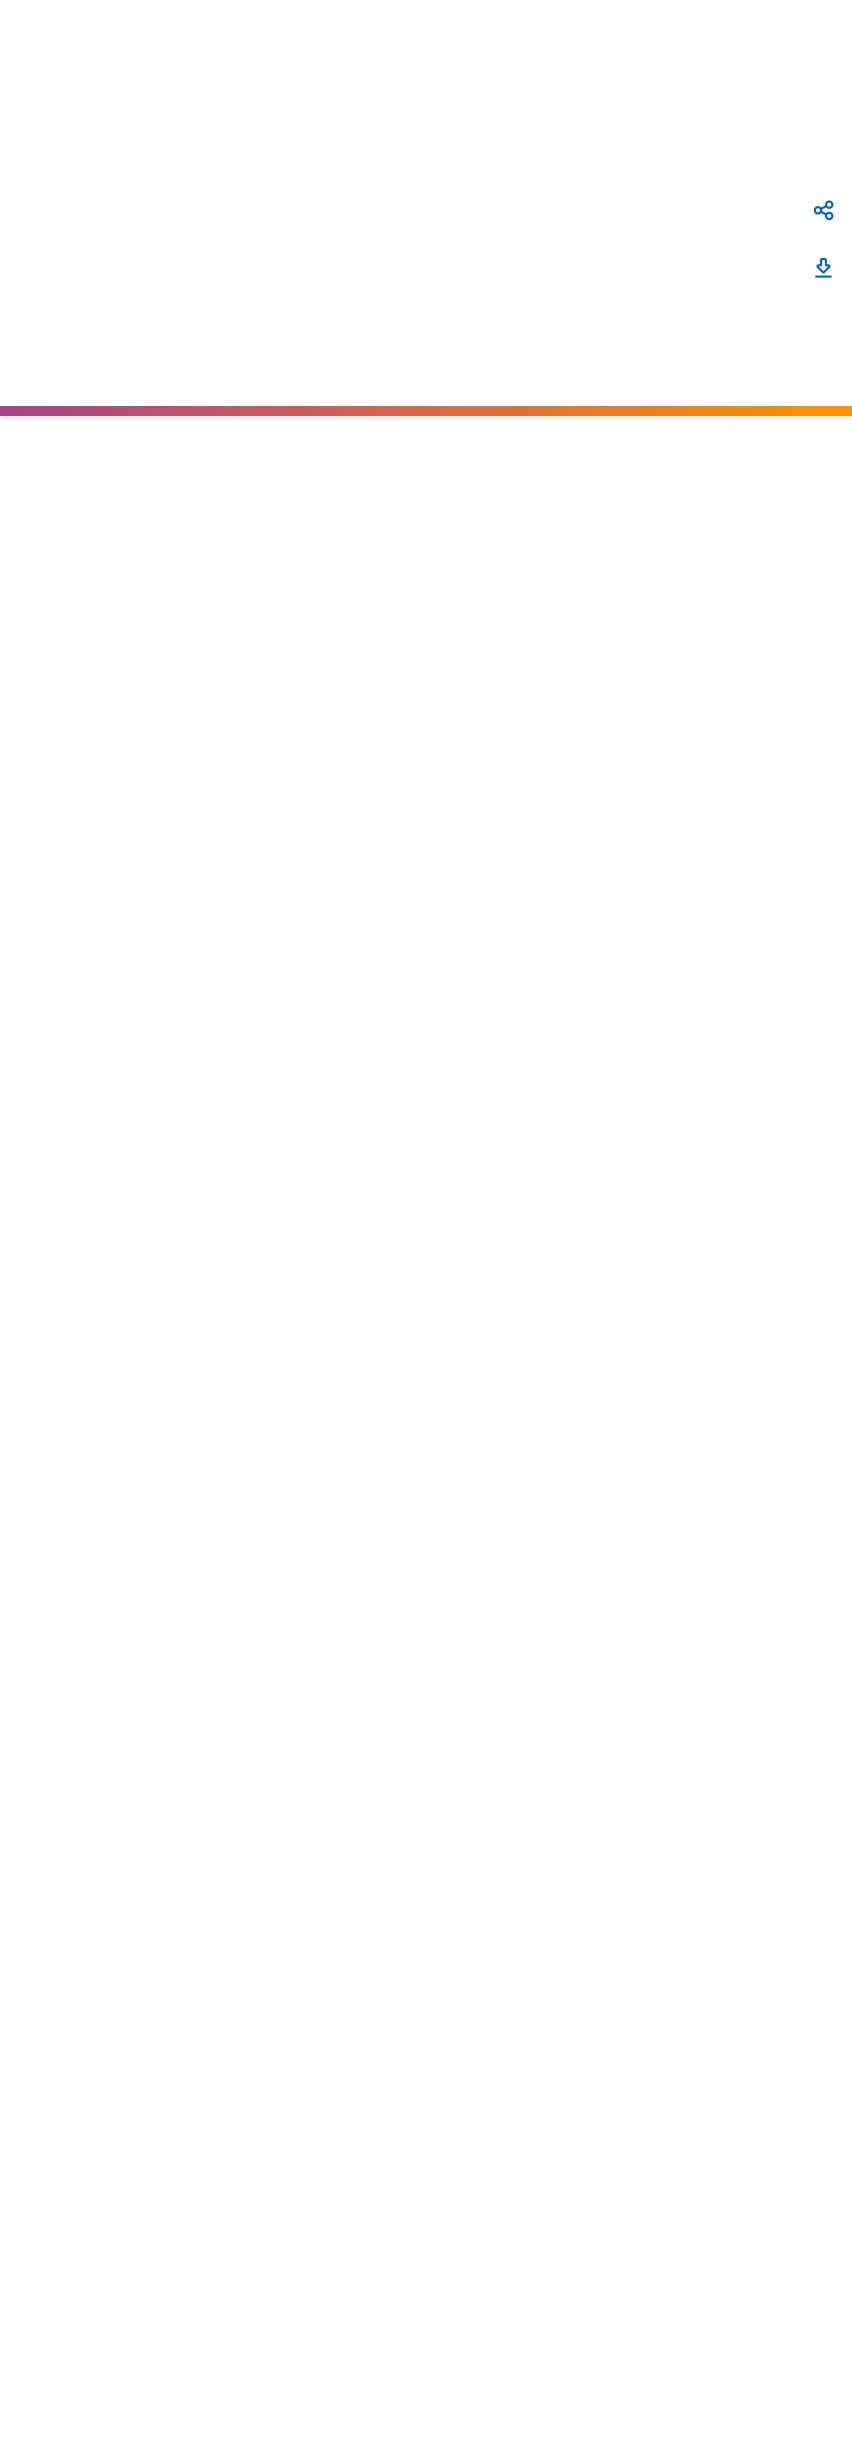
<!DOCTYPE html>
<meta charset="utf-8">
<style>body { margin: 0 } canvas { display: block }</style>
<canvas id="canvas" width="852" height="2437"></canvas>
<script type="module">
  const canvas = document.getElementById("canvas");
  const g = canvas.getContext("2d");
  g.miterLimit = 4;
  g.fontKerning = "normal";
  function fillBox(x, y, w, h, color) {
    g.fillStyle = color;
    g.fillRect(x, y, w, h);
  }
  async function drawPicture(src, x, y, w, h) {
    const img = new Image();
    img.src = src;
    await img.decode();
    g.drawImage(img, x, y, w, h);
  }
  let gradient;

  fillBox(0, 0, 852, 2437, "#FFFFFF");
  g.save();
  g.beginPath();
  g.rect(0, 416, 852, 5);
  g.clip();
  g.fillStyle = "rgba(0, 0, 0, 0.1)";
  g.filter = "blur(2.5px)";
  g.beginPath();
  g.rect(0, 3, 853, 416);
  g.fill();
  g.filter = "none";
  g.restore();
  await drawPicture("pic1.png", 813, 200, 21, 21);
  await drawPicture("pic2.png", 815, 258, 17, 20);
  gradient = g.createLinearGradient(0, 411, 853, 411);
  gradient.addColorStop(0, "#AA418C");
  gradient.addColorStop(1, "#FF9300");
  g.fillStyle = gradient;
  g.fillRect(0, 406, 852, 10);
</script>
